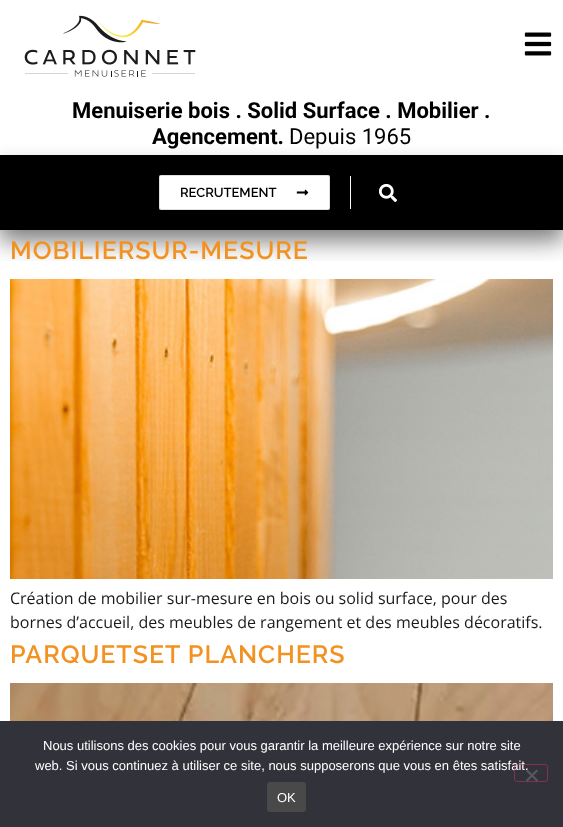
<!DOCTYPE html>
<meta charset="utf-8">
<style>body { margin: 0 } canvas { display: block }</style>
<canvas id="canvas" width="563" height="827"></canvas>
<script type="module">
  const canvas = document.getElementById("canvas");
  const g = canvas.getContext("2d");
  g.miterLimit = 4;
  g.fontKerning = "normal";
  function drawText(s, x, y, [font, color]) {
    g.font = font;
    g.fillStyle = color;
    g.fillText(s, x, y);
  }
  function fillBox(x, y, w, h, color) {
    g.fillStyle = color;
    g.fillRect(x, y, w, h);
  }
  function fillRounded(x, y, w, h, r, color) {
    g.fillStyle = color;
    g.beginPath();
    g.roundRect(x, y, w, h, r);
    g.fill();
  }
  async function drawPicture(src, x, y, w, h) {
    const img = new Image();
    img.src = src;
    await img.decode();
    g.drawImage(img, x, y, w, h);
  }

  const s1 = ["bold 22px Roboto", "#000000"];
  const s2 = ["22px Roboto", "#000000"];
  const s3 = ["600 13px Raleway", "#000000"];
  const s4 = ["600 25px Raleway", "#F29222"];
  const s5 = ["16px Open Sans", "#1D1A1A"];
  const s6 = ["13px Liberation Sans", "#FFFFFF"];

  fillBox(0, 0, 563, 827, "#FFFFFF");
  await drawPicture("pic5.png", 10, 279, 543, 300);
  g.save();
  g.beginPath();
  g.rect(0, 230, 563, 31);
  g.clip();
  g.fillStyle = "rgba(0, 0, 0, 0.25)";
  g.filter = "blur(15px)";
  g.beginPath();
  g.rect(0, 10, 563, 230);
  g.fill();
  g.filter = "none";
  g.restore();
  await drawPicture("pic1.png", 24, 15, 172, 62);
  await drawPicture("pic2.png", 524, 32, 28, 24);
  drawText("Menuiserie bois . Solid Surface . Mobilier .", 72, 118, s1);
  drawText("Agencement.", 152, 144, s1);
  drawText("Depuis 1965", 289, 144, s2);
  g.fillStyle = "rgba(0, 0, 0, 0.35)";
  g.filter = "blur(10px)";
  g.beginPath();
  g.rect(0, 165, 563, 75);
  g.fill();
  g.filter = "none";
  fillBox(0, 155, 563, 75, "#000000");
  fillRounded(159, 175, 171, 35, 2, "#FFFFFF");
  g.beginPath();
  g.roundRect(159.5, 175.5, 170, 34, 1.5);
  g.strokeStyle = "rgba(0, 0, 0, 0.12)";
  g.stroke();
  drawText("RECRUTEMENT", 180, 197, s3);
  await drawPicture("pic3.png", 296, 189, 13, 7);
  fillBox(350, 176, 1, 33, "#FBFAFA");
  await drawPicture("pic4.png", 379, 184, 18, 18);
  g.letterSpacing = "1px";
  drawText("MOBILIERSUR-MESURE", 10, 259, s4);
  g.letterSpacing = "0px";
  drawText("Création de mobilier sur-mesure en bois ou solid surface, pour des", 10, 604, s5);
  drawText("bornes d’accueil, des meubles de rangement et des meubles décoratifs.", 10, 628, s5);
  g.letterSpacing = "1px";
  drawText("PARQUETSET PLANCHERS", 10, 663, s4);
  await drawPicture("pic6.png", 10, 683, 543, 38);
  fillBox(0, 721, 563, 106, "#32323A");
  g.letterSpacing = "0px";
  drawText("Nous utilisons des cookies pour vous garantir la meilleure expérience sur notre site", 43, 750, s6);
  drawText("web. Si vous continuez à utiliser ce site, nous supposerons que vous en êtes satisfait.", 35, 770, s6);
  g.beginPath();
  g.roundRect(514.5, 764.5, 33, 17, 2.5);
  g.strokeStyle = "rgba(204, 51, 102, 0.5)";
  g.stroke();
  g.fillStyle = "#59595D";
  g.beginPath();
  g.moveTo(536.5, 769.5);
  g.lineTo(538, 771);
  g.lineTo(527.5, 781.5);
  g.lineTo(526, 780);
  g.closePath();
  g.fill();
  g.beginPath();
  g.moveTo(526, 771);
  g.lineTo(527.5, 769.5);
  g.lineTo(538, 780);
  g.lineTo(536.5, 781.5);
  g.closePath();
  g.fill();
  fillRounded(267, 782, 39, 30, 3, "#494949");
  drawText("OK", 277, 802, s6);
</script>
